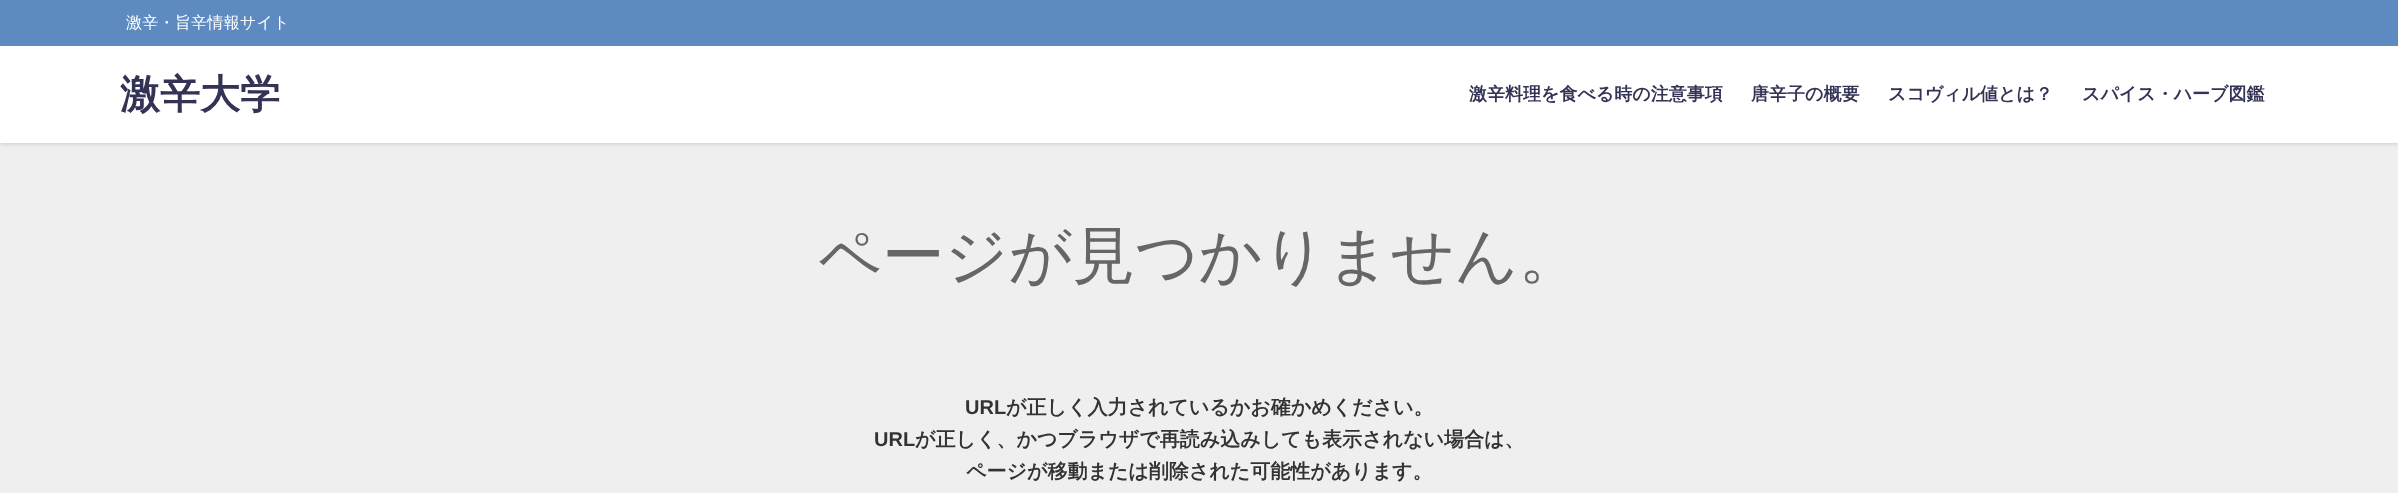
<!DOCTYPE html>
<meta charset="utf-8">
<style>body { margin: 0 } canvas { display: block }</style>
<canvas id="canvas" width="2398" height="493"></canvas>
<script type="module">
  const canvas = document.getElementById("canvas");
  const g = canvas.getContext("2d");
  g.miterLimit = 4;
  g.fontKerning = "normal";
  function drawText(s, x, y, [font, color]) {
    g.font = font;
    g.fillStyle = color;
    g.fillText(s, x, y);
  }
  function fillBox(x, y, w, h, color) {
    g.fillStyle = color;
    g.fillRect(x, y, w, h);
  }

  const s1 = ["500 16.25px WenQuanYi Zen Hei", "#FFFFFF"];
  const s2 = ["bold 40px WenQuanYi Zen Hei", "#333355"];
  const s3 = ["bold 18px WenQuanYi Zen Hei", "#333355"];
  const s4 = ["500 62.5px WenQuanYi Zen Hei", "#666666"];
  const s5 = ["bold 20px Liberation Sans", "#333333"];
  const s6 = ["bold 20px WenQuanYi Zen Hei", "#333333"];

  fillBox(0, 0, 2398, 493, "#EFEFEF");
  g.fillStyle = "rgba(0, 0, 0, 0.2)";
  g.filter = "blur(2.5px)";
  g.beginPath();
  g.rect(0, 0, 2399, 143);
  g.fill();
  g.filter = "none";
  fillBox(0, 46, 2398, 97, "#FFFFFF");
  fillBox(0, 0, 2398, 46, "#5D8AC1");
  drawText("激辛・旨辛情報サイト", 126, 28, s1);
  drawText("激辛大学", 120, 108, s2);
  drawText("激辛料理を食べる時の注意事項", 1469, 100, s3);
  drawText("唐辛子の概要", 1751, 100, s3);
  drawText("スコヴィル値とは？", 1888, 100, s3);
  drawText("スパイス・ハーブ図鑑", 2082, 100, s3);
  drawText("ページが見つかりません。", 818, 277, s4);
  drawText("URL", 965, 414, s5);
  drawText("が正しく入力されているかお確かめください。", 1006, 414, s6);
  drawText("URL", 874, 446, s5);
  drawText("が正しく、かつブラウザで再読み込みしても表示されない場合は、", 915, 446, s6);
  drawText("ページが移動または削除された可能性があります。", 966, 478, s6);
</script>
